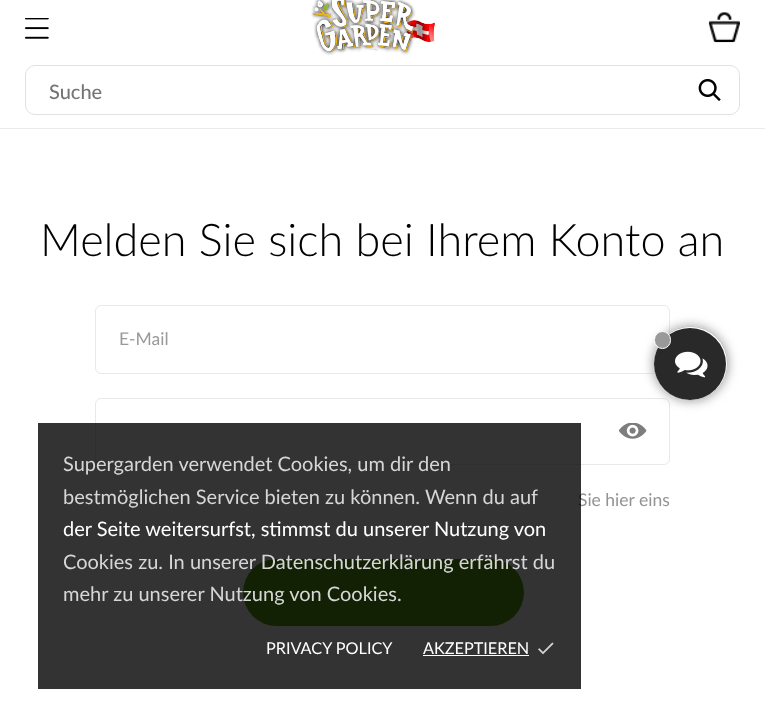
<!DOCTYPE html>
<meta charset="utf-8">
<style>body { margin: 0 } canvas { display: block }</style>
<canvas id="canvas" width="765" height="726"></canvas>
<script type="module">
  const canvas = document.getElementById("canvas");
  const g = canvas.getContext("2d");
  g.miterLimit = 4;
  g.fontKerning = "normal";
  function drawText(s, x, y, [font, color]) {
    g.font = font;
    g.fillStyle = color;
    g.fillText(s, x, y);
  }
  function fillBox(x, y, w, h, color) {
    g.fillStyle = color;
    g.fillRect(x, y, w, h);
  }
  function fillRounded(x, y, w, h, r, color) {
    g.fillStyle = color;
    g.beginPath();
    g.roundRect(x, y, w, h, r);
    g.fill();
  }
  async function drawPicture(src, x, y, w, h) {
    const img = new Image();
    img.src = src;
    await img.decode();
    g.drawImage(img, x, y, w, h);
  }

  const s1 = ["500 20px Lato", "#757575"];
  const s2 = ["300 45px Lato", "#000000"];
  const s3 = ["17.5px Lato", "#999999"];
  const s4 = ["17.5px Lato", "#939393"];
  const s5 = ["20px Lato", "#D6D6D6"];
  const s6 = ["20px Lato", "#FFFFFF"];
  const s7 = ["16.25px Lato", "#FFFFFF"];

  fillBox(0, 0, 765, 726, "#FFFFFF");
  fillBox(0, 128, 765, 1, "#EBEAEA");
  await drawPicture("pic1.png", 25, 18, 24, 21);
  await drawPicture("pic2.png", 311, 0, 124, 56);
  await drawPicture("pic3.png", 708, 12, 32, 31);
  g.beginPath();
  g.roundRect(25.5, 65.5, 714, 49, 9.5);
  g.strokeStyle = "#E1E1E1";
  g.stroke();
  drawText("Suche", 49, 99, s1);
  await drawPicture("pic4.png", 698, 79, 23, 22);
  drawText("Melden Sie sich bei Ihrem Konto an", 40, 256, s2);
  g.beginPath();
  g.roundRect(95.5, 305.5, 574, 68, 5.5);
  g.strokeStyle = "#EAE9E9";
  g.stroke();
  drawText("E-Mail", 119, 345, s3);
  g.beginPath();
  g.roundRect(95.5, 398.5, 574, 66, 5.5);
  g.stroke();
  await drawPicture("pic5.png", 619, 423, 28, 16);
  drawText("Sie hier eins", 578, 506, s4);
  fillRounded(243, 559, 281, 67, 33.5, "#5BA718");
  g.save();
  g.beginPath();
  g.moveTo(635, 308);
  g.lineTo(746, 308);
  g.lineTo(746, 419);
  g.lineTo(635, 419);
  g.closePath();
  g.moveTo(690.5, 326);
  g.bezierCurveTo(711, 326, 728, 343, 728, 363.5);
  g.bezierCurveTo(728, 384, 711, 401, 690.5, 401);
  g.bezierCurveTo(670, 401, 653, 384, 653, 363.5);
  g.bezierCurveTo(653, 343, 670, 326, 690.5, 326);
  g.closePath();
  g.clip("evenodd");
  g.fillStyle = "#999999";
  g.filter = "blur(5.5px)";
  g.beginPath();
  g.roundRect(653, 326, 75, 75, 37.5);
  g.fill();
  g.filter = "none";
  g.restore();
  g.beginPath();
  g.arc(690.5, 363.5, 37, 0, Math.PI * 2);
  g.strokeStyle = "#BEBEBE";
  g.stroke();
  g.fillStyle = "#292929";
  g.beginPath();
  g.arc(690, 364, 36, 0, Math.PI * 2);
  g.fill();
  await drawPicture("pic6.png", 675, 351, 33, 27);
  g.fillStyle = "#999999";
  g.beginPath();
  g.roundRect(654.5, 331.5, 16, 17, 8);
  g.fill();
  g.strokeStyle = "#FFFFFF";
  g.stroke();
  fillBox(38, 423, 543, 266, "rgba(0, 0, 0, 0.8)");
  drawText("Supergarden verwendet Cookies, um dir den", 63, 471, s5);
  drawText("bestmöglichen Service bieten zu können. Wenn du auf", 63, 504, s5);
  drawText("der Seite weitersurfst, stimmst du unserer Nutzung von", 63, 536, s6);
  drawText("Cookies zu. In unserer Datenschutzerklärung erfährst du", 63, 569, s5);
  drawText("mehr zu unserer Nutzung von Cookies.", 63, 601, s5);
  drawText("PRIVACY POLICY", 266, 654, s7);
  drawText("AKZEPTIEREN", 423, 654, s7);
  fillBox(423, 655, 106, 1, "#FFFFFF");
  await drawPicture("pic7.png", 538, 642, 16, 13);
</script>
